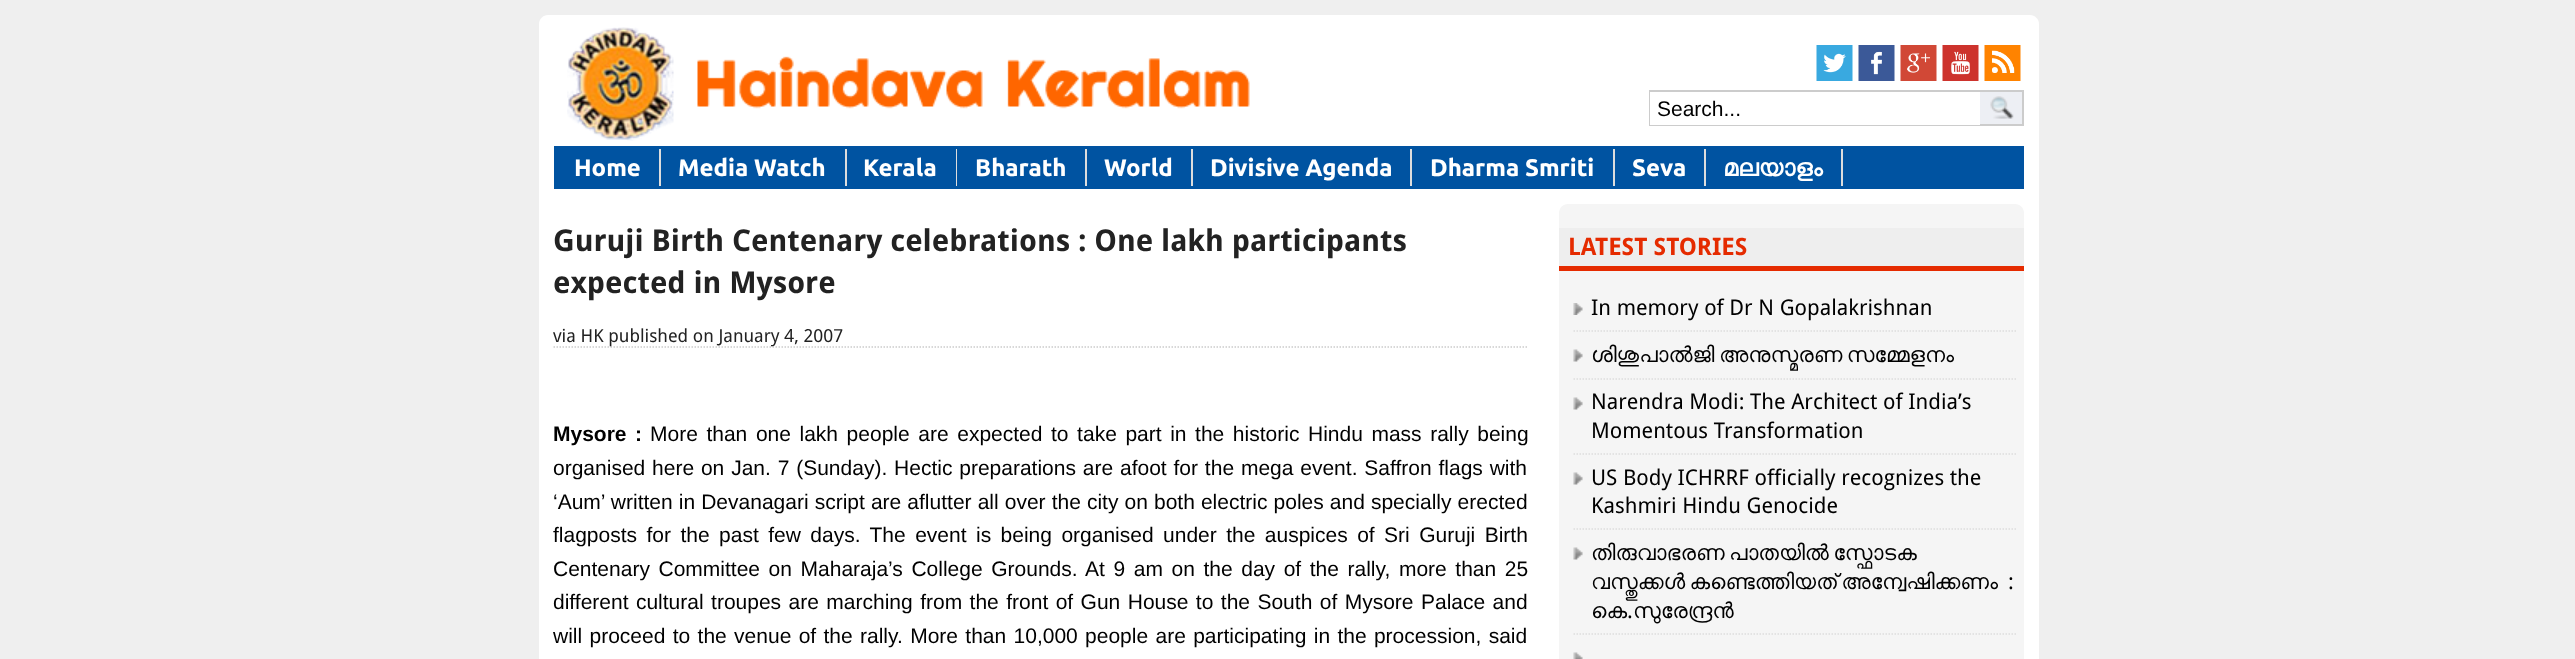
<!DOCTYPE html>
<meta charset="utf-8">
<style>body { margin: 0 } canvas { display: block }</style>
<canvas id="canvas" width="2575" height="659"></canvas>
<script type="module">
  const canvas = document.getElementById("canvas");
  const g = canvas.getContext("2d");
  g.miterLimit = 4;
  g.fontKerning = "normal";
  function drawText(s, x, y, [font, color]) {
    g.font = font;
    g.fillStyle = color;
    g.fillText(s, x, y);
  }
  function fillBox(x, y, w, h, color) {
    g.fillStyle = color;
    g.fillRect(x, y, w, h);
  }
  async function drawPicture(src, x, y, w, h) {
    const img = new Image();
    img.src = src;
    await img.decode();
    g.drawImage(img, x, y, w, h);
  }

  const s1 = ["21px Liberation Sans", "#000000"];
  const s2 = ["bold 24px Ubuntu", "#FFFFFF"];
  const s3 = ["bold 24px FreeSans", "#FFFFFF"];
  const s4 = ["bold 30px Droid Sans", "#222222"];
  const s5 = ["18px Droid Sans", "#222222"];
  const s6 = ["bold 21px Liberation Sans", "#000000"];
  const s7 = ["bold 24px Droid Sans", "#E52B00"];
  const s8 = ["21.6px Droid Sans", "#000000"];
  const s9 = ["21.6px FreeSans", "#000000"];

  fillBox(0, 0, 2575, 659, "#EFEFEF");
  g.fillStyle = "#FFFFFF";
  g.beginPath();
  g.moveTo(548, 15);
  g.lineTo(2030, 15);
  g.bezierCurveTo(2035, 15, 2039, 19, 2039, 24);
  g.lineTo(2039, 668);
  g.lineTo(539, 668);
  g.lineTo(539, 24);
  g.bezierCurveTo(539, 19, 543, 15, 548, 15);
  g.closePath();
  g.fill();
  await drawPicture("pic1.png", 567, 27, 683, 114);
  await drawPicture("pic2.png", 1816, 45, 37, 36);
  await drawPicture("pic3.png", 1858, 45, 37, 36);
  await drawPicture("pic4.png", 1900, 45, 37, 36);
  await drawPicture("pic5.png", 1942, 45, 37, 36);
  await drawPicture("pic6.png", 1984, 45, 37, 36);
  fillBox(1980, 92, 42, 32, "#EDEFF4");
  g.strokeStyle = "#CCCCCC";
  g.lineWidth = 2;
  g.strokeRect(1650, 91, 373, 34);
  fillBox(1650, 92, 330, 33, "#FFFFFF");
  drawText("Search...", 1657, 116, s1);
  await drawPicture("pic7.png", 1990, 96, 24, 23);
  fillBox(554, 146, 1470, 43, "#0053A1");
  fillBox(659, 149, 2, 37, "#DDDDDD");
  drawText("Home", 574, 176, s2);
  fillBox(845, 149, 2, 37, "#DDDDDD");
  drawText("Media Watch", 678, 176, s2);
  fillBox(956, 149, 1, 37, "#DDDDDD");
  drawText("Kerala", 863, 176, s2);
  fillBox(1085, 149, 2, 37, "#DDDDDD");
  drawText("Bharath", 975, 176, s2);
  fillBox(1191, 149, 2, 37, "#DDDDDD");
  drawText("World", 1104, 176, s2);
  fillBox(1410, 149, 2, 37, "#DDDDDD");
  drawText("Divisive Agenda", 1210, 176, s2);
  fillBox(1613, 149, 2, 37, "#DDDDDD");
  drawText("Dharma Smriti", 1430, 176, s2);
  fillBox(1704, 149, 2, 37, "#DDDDDD");
  drawText("Seva", 1632, 176, s2);
  fillBox(1841, 149, 2, 37, "#DDDDDD");
  drawText("മലയാളം", 1723, 176, s3);
  drawText("Guruji Birth Centenary celebrations : One lakh participants", 553, 251, s4);
  drawText("expected in Mysore", 553, 293, s4);
  g.beginPath();
  g.moveTo(553.5, 347);
  g.lineTo(1528.5, 347);
  g.lineWidth = 1.5;
  g.setLineDash([1.5, 1.5]);
  g.stroke();
  drawText("via HK published on January 4, 2007", 553, 342, s5);
  g.wordSpacing = "2.75px";
  drawText("Mysore :", 553, 441, s6);
  drawText("More than one lakh people are expected to take part in the historic Hindu mass rally being", 650, 441, s1);
  g.wordSpacing = "1px";
  drawText("organised here on Jan. 7 (Sunday). Hectic preparations are afoot for the mega event. Saffron flags with", 553, 475, s1);
  g.wordSpacing = "0.25px";
  drawText("‘Aum’ written in Devanagari script are aflutter all over the city on both electric poles and specially erected", 553, 509, s1);
  g.wordSpacing = "3.6px";
  drawText("flagposts for the past few days. The event is being organised under the auspices of Sri Guruji Birth", 553, 542, s1);
  g.wordSpacing = "2.75px";
  drawText("Centenary Committee on Maharaja’s College Grounds. At 9 am on the day of the rally, more than 25", 553, 576, s1);
  g.wordSpacing = "1.6px";
  drawText("different cultural troupes are marching from the front of Gun House to the South of Mysore Palace and", 553, 609, s1);
  g.wordSpacing = "1.5px";
  drawText("will proceed to the venue of the rally. More than 10,000 people are participating in the procession, said", 553, 643, s1);
  g.fillStyle = "#F5F5F5";
  g.beginPath();
  g.moveTo(1568, 204);
  g.lineTo(2015, 204);
  g.bezierCurveTo(2020, 204, 2024, 208, 2024, 213);
  g.lineTo(2024, 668);
  g.lineTo(1559, 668);
  g.lineTo(1559, 213);
  g.bezierCurveTo(1559, 208, 1563, 204, 1568, 204);
  g.closePath();
  g.fill();
  fillBox(1559, 228, 465, 38, "#EEEEEE");
  fillBox(1559, 266, 465, 5, "#E52B00");
  g.wordSpacing = "0px";
  drawText("LATEST STORIES", 1568, 255, s7);
  await drawPicture("pic8.png", 1573, 303, 10, 12);
  g.beginPath();
  g.moveTo(1573.5, 331);
  g.lineTo(2016, 331);
  g.strokeStyle = "#DDDDDD";
  g.stroke();
  drawText("In memory of Dr N Gopalakrishnan", 1591, 315, s8);
  await drawPicture("pic9.png", 1573, 349, 10, 13);
  g.beginPath();
  g.moveTo(1573.5, 379);
  g.lineTo(2016, 379);
  g.stroke();
  g.wordSpacing = "-1px";
  drawText("ശിശുപാൽജി അനുസ്മരണ സമ്മേളനം", 1591, 362, s9);
  await drawPicture("pic9.png", 1573, 397, 10, 13);
  g.beginPath();
  g.moveTo(1573.5, 454);
  g.lineTo(2016, 454);
  g.stroke();
  g.wordSpacing = "0px";
  drawText("Narendra Modi: The Architect of India’s", 1591, 409, s8);
  drawText("Momentous Transformation", 1591, 438, s8);
  await drawPicture("pic9.png", 1573, 472, 10, 13);
  g.beginPath();
  g.moveTo(1573.5, 529);
  g.lineTo(2016, 529);
  g.stroke();
  drawText("US Body ICHRRF officially recognizes the", 1591, 485, s8);
  drawText("Kashmiri Hindu Genocide", 1591, 513, s8);
  await drawPicture("pic9.png", 1573, 547, 10, 13);
  g.beginPath();
  g.moveTo(1573.5, 634);
  g.lineTo(2016, 634);
  g.stroke();
  g.wordSpacing = "-1px";
  drawText("തിരുവാഭരണ പാതയിൽ സ്ഫോടക", 1591, 560, s9);
  drawText("വസ്തുക്കൾ കണ്ടെത്തിയത് അന്വേഷിക്കണം", 1591, 589, s9);
  g.wordSpacing = "0px";
  drawText(":", 2008, 589, s8);
  drawText("കെ", 1591, 618, s9);
  drawText(".", 1627, 618, s8);
  drawText("സുരേന്ദ്രൻ", 1633, 618, s9);
  await drawPicture("pic10.png", 1573, 652, 10, 7);
</script>
